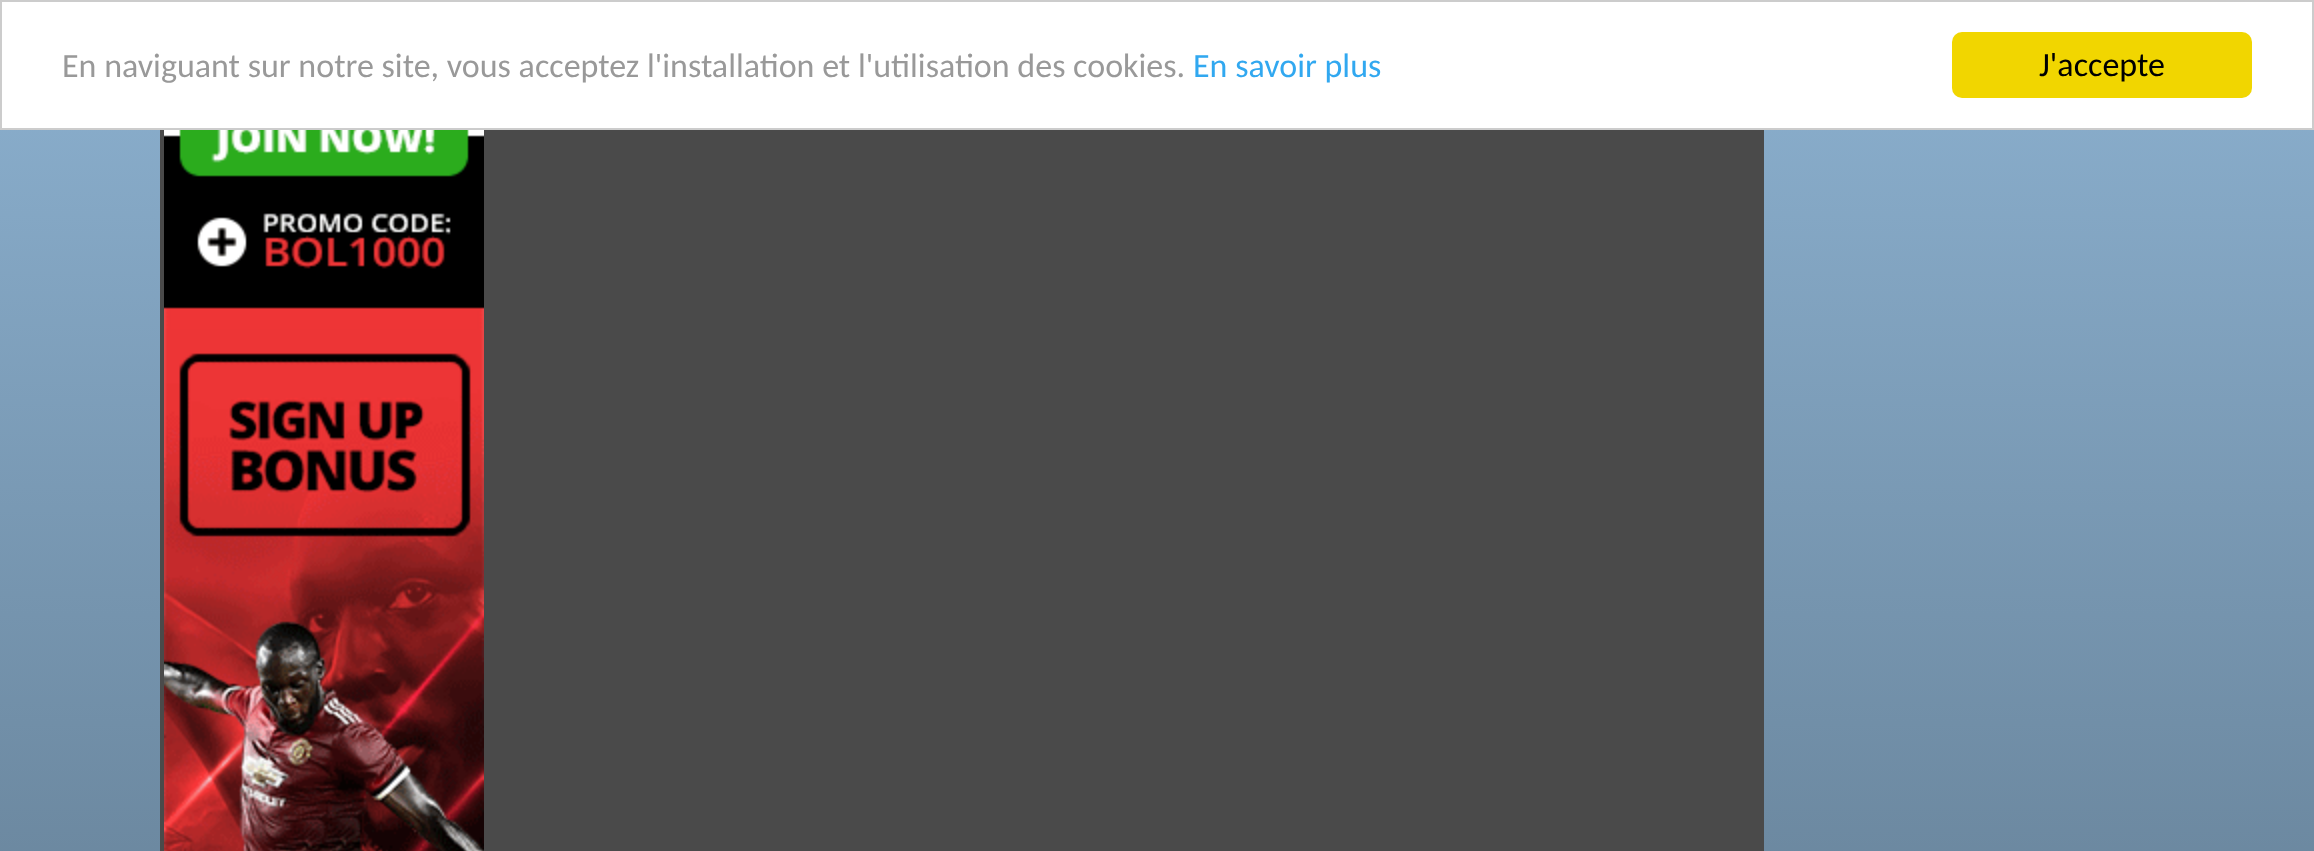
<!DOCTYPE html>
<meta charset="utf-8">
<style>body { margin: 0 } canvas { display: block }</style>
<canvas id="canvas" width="2314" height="851"></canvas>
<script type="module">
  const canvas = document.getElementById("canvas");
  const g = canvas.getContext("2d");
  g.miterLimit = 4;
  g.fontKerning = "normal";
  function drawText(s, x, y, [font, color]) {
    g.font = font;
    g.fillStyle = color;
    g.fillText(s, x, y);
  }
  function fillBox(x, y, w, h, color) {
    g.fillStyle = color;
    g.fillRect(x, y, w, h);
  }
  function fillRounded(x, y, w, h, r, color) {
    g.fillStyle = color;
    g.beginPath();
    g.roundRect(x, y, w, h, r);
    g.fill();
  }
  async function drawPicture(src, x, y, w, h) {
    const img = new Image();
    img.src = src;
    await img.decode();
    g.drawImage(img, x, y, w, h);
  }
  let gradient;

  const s1 = ["34px Carlito", "#999999"];
  const s2 = ["34px Carlito", "#31A8F0"];
  const s3 = ["34px Carlito", "#000000"];

  fillBox(0, 0, 2314, 851, "#FFFFFF");
  gradient = g.createLinearGradient(0, 0, 0, 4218);
  gradient.addColorStop(0, "#8CB1D0");
  gradient.addColorStop(0.89, "#000000");
  g.fillStyle = gradient;
  g.fillRect(0, 130, 2314, 721);
  g.strokeStyle = "#CCCCCC";
  g.lineWidth = 2;
  g.strokeRect(1, 1, 2312, 128);
  drawText("En naviguant sur notre site, vous acceptez l'installation et l'utilisation des cookies.", 62, 77, s1);
  drawText("En savoir plus", 1193, 77, s2);
  fillRounded(1952, 32, 300, 66, 10, "#F1D600");
  drawText("J'accepte", 2039, 76, s3);
  fillBox(160, 130, 1604, 721, "#4A4A4A");
  await drawPicture("pic1.png", 164, 130, 320, 721);
</script>
